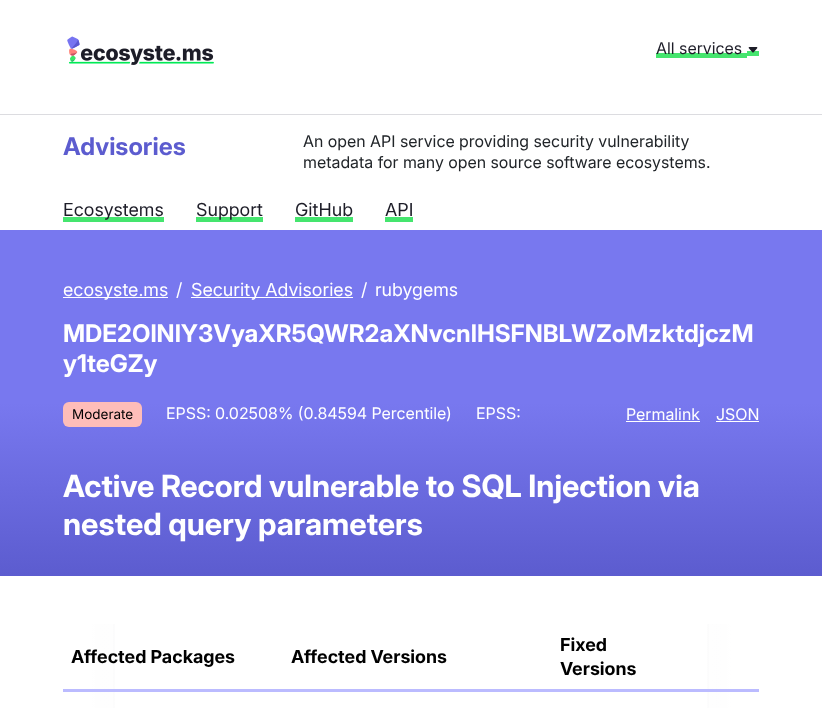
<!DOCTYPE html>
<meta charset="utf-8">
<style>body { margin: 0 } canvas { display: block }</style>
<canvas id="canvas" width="822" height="708"></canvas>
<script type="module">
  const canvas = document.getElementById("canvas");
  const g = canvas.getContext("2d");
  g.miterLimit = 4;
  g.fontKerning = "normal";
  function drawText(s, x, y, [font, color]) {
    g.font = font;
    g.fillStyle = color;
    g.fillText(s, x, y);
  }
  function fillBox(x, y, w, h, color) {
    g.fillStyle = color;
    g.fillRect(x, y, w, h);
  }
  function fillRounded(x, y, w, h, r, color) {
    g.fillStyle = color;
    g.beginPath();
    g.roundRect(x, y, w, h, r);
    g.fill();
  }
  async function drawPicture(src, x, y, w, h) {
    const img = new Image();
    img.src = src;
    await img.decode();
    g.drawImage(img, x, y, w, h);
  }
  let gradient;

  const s1 = ["16px Inter", "#1D1D28"];
  const s2 = ["bold 24.3px Inter", "#5C5CCF"];
  const s3 = ["16px Inter", "#212529"];
  const s4 = ["18px 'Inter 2'", "#1D1D28"];
  const s5 = ["18px 'Inter 2'", "#FFFFFF"];
  const s6 = ["bold 24.3px Inter", "#FFFFFF"];
  const s7 = ["13.5px 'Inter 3'", "#000000"];
  const s8 = ["16px Inter", "#FFFFFF"];
  const s9 = ["bold 30.75px 'Inter 2'", "#FFFFFF"];
  const s10 = ["bold 18px 'Inter 3'", "#000000"];

  fillBox(0, 0, 822, 708, "#FFFFFF");
  await drawPicture("pic1.png", 67, 36, 147, 29);
  fillBox(656, 53, 91, 5, "#45E56E");
  fillBox(747, 51, 12, 5, "#45E56E");
  drawText("All services", 656, 54, s1);
  await drawPicture("pic2.png", 748, 47, 10, 6);
  fillBox(0, 114, 822, 1, "#DCDCE0");
  drawText("Advisories", 63, 155, s2);
  drawText("An open API service providing security vulnerability", 303, 147, s3);
  drawText("metadata for many open source software ecosystems.", 303, 168, s3);
  fillBox(63, 217, 101, 5, "#45E56E");
  drawText("Ecosystems", 63, 216, s4);
  fillBox(196, 217, 67, 5, "#45E56E");
  drawText("Support", 196, 216, s4);
  fillBox(295, 217, 58, 5, "#45E56E");
  drawText("GitHub", 295, 216, s4);
  fillBox(385, 217, 28, 5, "#45E56E");
  drawText("API", 385, 216, s4);
  gradient = g.createLinearGradient(411, 576, 411, 230);
  gradient.addColorStop(0, "#5C5CCF");
  gradient.addColorStop(0.5, "#7878EF");
  g.fillStyle = gradient;
  g.fillRect(0, 230, 822, 346);
  fillBox(63, 297, 105, 1, "#FFFFFF");
  drawText("ecosyste.ms", 63, 296, s5);
  drawText("/", 176, 296, s5);
  fillBox(191, 297, 162, 1, "#FFFFFF");
  drawText("Security Advisories", 191, 296, s5);
  drawText("/", 361, 296, s5);
  drawText("rubygems", 375, 296, s5);
  drawText("MDE2OlNlY3VyaXR5QWR2aXNvcnlHSFNBLWZoMzktdjczM", 63, 342, s6);
  drawText("y1teGZy", 63, 372, s6);
  fillRounded(63, 402, 79, 25, 6, "#FEBDB9");
  drawText("Moderate", 72, 419, s7);
  drawText("EPSS: 0.02508% (0.84594 Percentile)", 166, 419, s8);
  drawText("EPSS:", 476, 419, s8);
  drawText("Permalink", 626, 420, s8);
  fillBox(626, 421, 74, 1, "#FFFFFF");
  drawText("JSON", 716, 420, s8);
  fillBox(716, 421, 43, 1, "#FFFFFF");
  drawText("Active Record vulnerable to SQL Injection via", 63, 497, s9);
  drawText("nested query parameters", 63, 535, s9);
  gradient = g.createRadialGradient(759, 42.61, 0, 759, 42.61, 56);
  gradient.addColorStop(0, "#DCDCE0");
  gradient.addColorStop(1, "#FFFFFF");
  g.fillStyle = gradient;
  g.beginPath();
  g.rect(707, 624, 24, 84);
  g.save();
  g.clip();
  g.scale(1, 820 / 56);
  g.fillRect(0, 0, 822, 49);
  g.restore();
  gradient = g.createRadialGradient(63, 42.61, 0, 63, 42.61, 56);
  gradient.addColorStop(0, "#DCDCE0");
  gradient.addColorStop(1, "#FFFFFF");
  g.fillStyle = gradient;
  g.beginPath();
  g.rect(91, 624, 24, 84);
  g.save();
  g.clip();
  g.scale(1, 820 / 56);
  g.fillRect(0, 0, 822, 49);
  g.restore();
  gradient = g.createLinearGradient(620, 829, 759, 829);
  gradient.addColorStop(0, "rgba(255, 255, 255, 0)");
  gradient.addColorStop(0.8, "#FFFFFF");
  g.fillStyle = gradient;
  g.fillRect(709, 624, 22, 84);
  gradient = g.createLinearGradient(63, 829, 202, 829);
  gradient.addColorStop(0.2, "#FFFFFF");
  gradient.addColorStop(1, "rgba(255, 255, 255, 0)");
  g.fillStyle = gradient;
  g.fillRect(91, 624, 22, 84);
  drawText("Affected Packages", 71, 663, s10);
  drawText("Affected Versions", 291, 663, s10);
  drawText("Fixed", 560, 651, s10);
  drawText("Versions", 560, 675, s10);
  fillBox(63, 689, 696, 3, "#BBBBFF");
</script>
